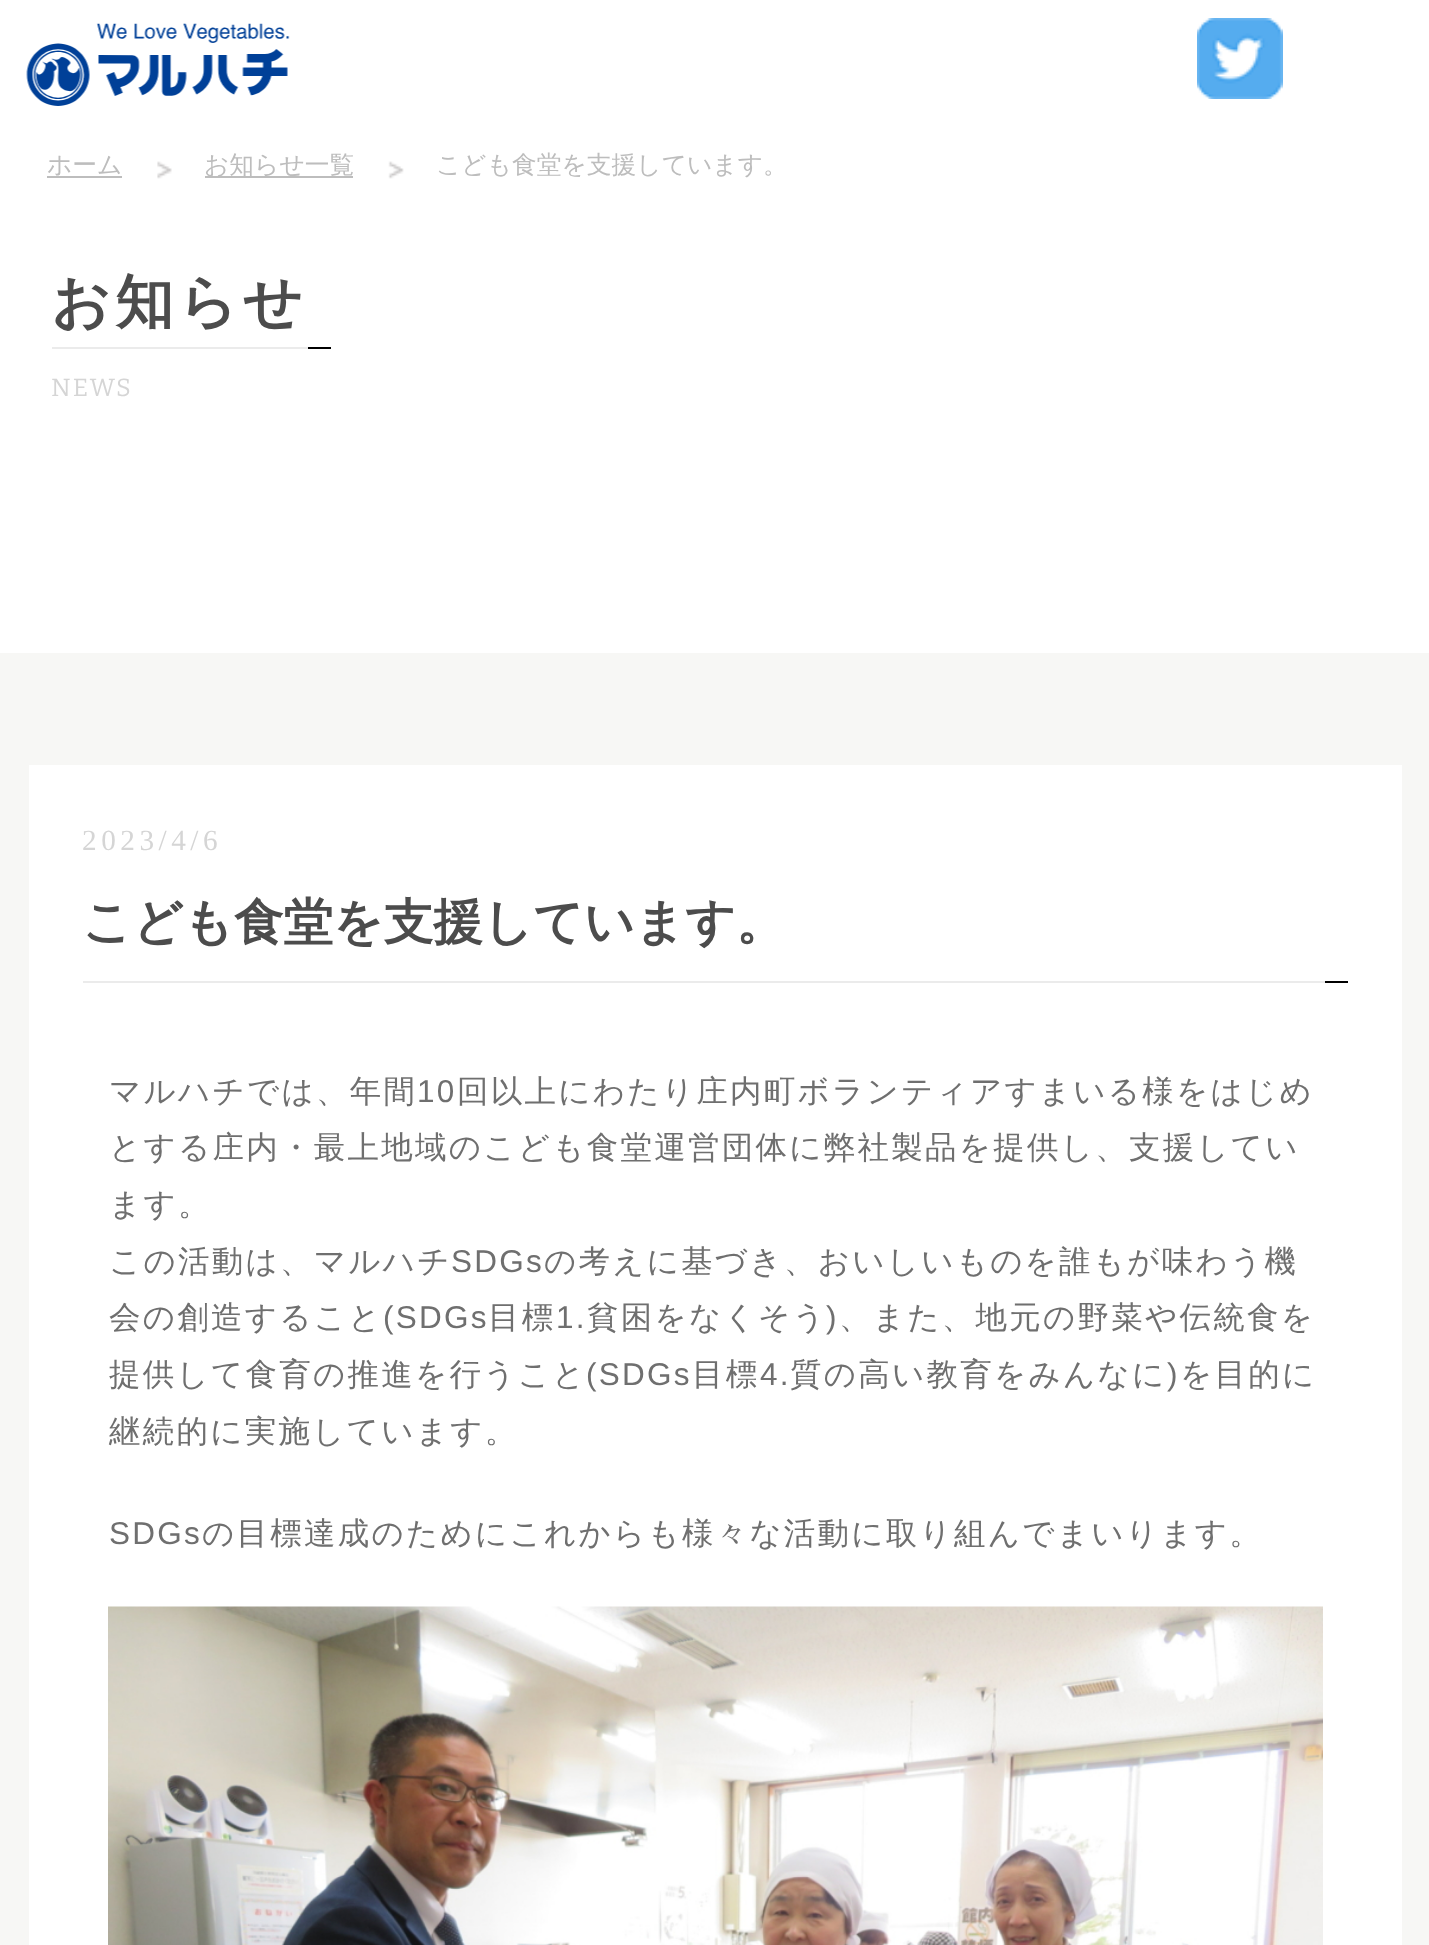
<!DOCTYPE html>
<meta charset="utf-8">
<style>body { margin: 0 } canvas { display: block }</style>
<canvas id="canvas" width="1429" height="1945"></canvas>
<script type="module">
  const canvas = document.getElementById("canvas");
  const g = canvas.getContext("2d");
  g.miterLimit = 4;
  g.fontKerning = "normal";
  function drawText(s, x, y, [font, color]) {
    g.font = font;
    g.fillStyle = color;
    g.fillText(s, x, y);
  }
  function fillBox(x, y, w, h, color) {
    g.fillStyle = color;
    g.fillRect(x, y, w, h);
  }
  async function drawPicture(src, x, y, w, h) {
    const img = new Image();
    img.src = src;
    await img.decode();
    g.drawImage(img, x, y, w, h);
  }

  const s1 = ["500 24.75px WenQuanYi Zen Hei", "#BDBDBD"];
  const s2 = ["bold 58.5px WenQuanYi Zen Hei", "#4C4C4C"];
  const s3 = ["100 24.75px Bitter", "#D5D5D5"];
  const s4 = ["29.25px Liberation Serif", "#D5D5D5"];
  const s5 = ["bold 49.5px WenQuanYi Zen Hei", "#4C4C4C"];
  const s6 = ["500 31.5px WenQuanYi Zen Hei", "#6F6F6F"];
  const s7 = ["31.5px Liberation Sans", "#6F6F6F"];

  fillBox(0, 0, 1429, 1945, "#F7F7F5");
  fillBox(0, 0, 1429, 653, "#FFFFFF");
  await drawPicture("pic1.png", 26, 23, 264, 83);
  await drawPicture("pic2.png", 1197, 18, 86, 81);
  await drawPicture("pic3.png", 157, 161, 15, 18);
  drawText("ホーム", 47, 173, s1);
  fillBox(47, 176, 75, 2, "#BDBDBD");
  await drawPicture("pic4.png", 388, 161, 16, 18);
  fillBox(205, 176, 148, 2, "#BDBDBD");
  drawText("お知らせ一覧", 204, 173, s1);
  drawText("こども食堂を支援しています。", 436, 173, s1);
  fillBox(52, 347, 256, 2, "#EBEBEB");
  g.letterSpacing = "4.5px";
  drawText("お知らせ", 51, 322, s2);
  fillBox(308, 347, 23, 2, "#000000");
  g.letterSpacing = "2.25px";
  drawText("NEWS", 51, 396, s3);
  fillBox(29, 765, 1373, 1180, "#FFFFFF");
  fillBox(83, 981, 1242, 2, "#EBEBEB");
  g.letterSpacing = "4.5px";
  drawText("2023/4/6", 82, 850, s4);
  g.letterSpacing = "0px";
  drawText("こども食堂を支援しています。", 82, 939, s5);
  fillBox(1325, 981, 23, 2, "#000000");
  g.letterSpacing = "2.25px";
  drawText("マルハチでは、年間", 109, 1102, s6);
  drawText("10", 417, 1102, s7);
  drawText("回以上にわたり庄内町ボランティアすまいる様をはじめ", 457, 1102, s6);
  drawText("とする庄内・最上地域のこども食堂運営団体に弊社製品を提供し、支援してい", 109, 1158, s6);
  drawText("ます。", 109, 1215, s6);
  drawText("この活動は、マルハチ", 109, 1272, s6);
  drawText("SDGs", 451, 1272, s7);
  drawText("の考えに基づき、おいしいものを誰もが味わう機", 544, 1272, s6);
  drawText("会の創造すること", 109, 1328, s6);
  drawText("(SDGs", 383, 1328, s7);
  drawText("目標", 488, 1328, s6);
  drawText("1.", 556, 1328, s7);
  drawText("貧困をなくそう", 587, 1328, s6);
  drawText(")", 826, 1328, s7);
  drawText("、また、地元の野菜や伝統食を", 839, 1328, s6);
  drawText("提供して食育の推進を行うこと", 109, 1385, s6);
  drawText("(SDGs", 586, 1385, s7);
  drawText("目標", 692, 1385, s6);
  drawText("4.", 760, 1385, s7);
  drawText("質の高い教育をみんなに", 790, 1385, s6);
  drawText(")", 1167, 1385, s7);
  drawText("を目的に", 1180, 1385, s6);
  drawText("継続的に実施しています。", 109, 1442, s6);
  drawText("SDGs", 109, 1544, s7);
  drawText("の目標達成のためにこれからも様々な活動に取り組んでまいります。", 202, 1544, s6);
  await drawPicture("pic5.png", 108, 1606, 1215, 339);
</script>
